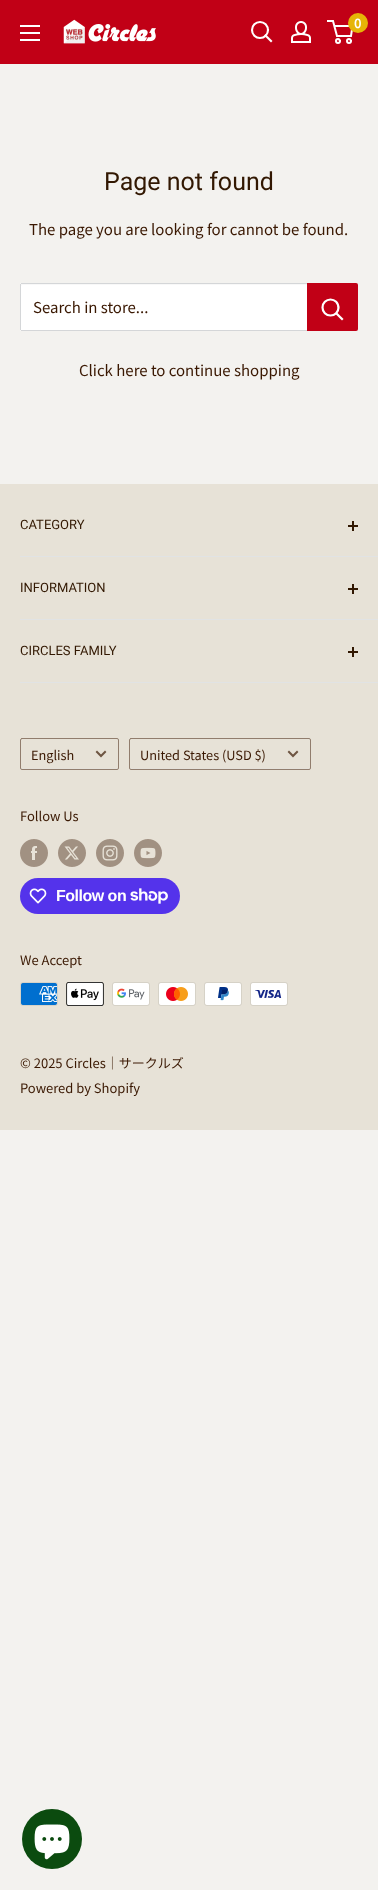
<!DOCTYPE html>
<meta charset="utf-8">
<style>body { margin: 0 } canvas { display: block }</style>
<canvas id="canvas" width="378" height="1890"></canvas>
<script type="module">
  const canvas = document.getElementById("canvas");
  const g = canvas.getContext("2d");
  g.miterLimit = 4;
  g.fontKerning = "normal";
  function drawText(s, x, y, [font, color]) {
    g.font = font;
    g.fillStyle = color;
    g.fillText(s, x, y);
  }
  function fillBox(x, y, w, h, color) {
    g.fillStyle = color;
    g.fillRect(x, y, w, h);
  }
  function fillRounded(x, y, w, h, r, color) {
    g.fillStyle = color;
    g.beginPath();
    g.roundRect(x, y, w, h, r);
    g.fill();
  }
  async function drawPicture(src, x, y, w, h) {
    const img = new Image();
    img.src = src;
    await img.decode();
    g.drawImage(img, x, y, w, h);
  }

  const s1 = ["600 13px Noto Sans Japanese", "#FFFFFF"];
  const s2 = ["25px Roboto", "#321802"];
  const s3 = ["15px Noto Sans Japanese", "#3A1802"];
  const s4 = ["13px Roboto", "#321802"];
  const s5 = ["12.75px Noto Sans Japanese", "#3A1802"];
  const s6 = ["13px Noto Sans Japanese", "#3A1802"];
  const s7 = ["bold 16px Liberation Sans", "#FFFFFF"];

  fillBox(0, 0, 378, 1890, "#F3F2EF");
  fillBox(0, 0, 378, 64, "#C10016");
  await drawPicture("pic1.png", 20, 25, 20, 16);
  await drawPicture("pic2.png", 63, 19, 93, 25);
  g.beginPath();
  g.moveTo(271, 41);
  g.lineTo(265.5, 35.5);
  g.strokeStyle = "#FFFFFF";
  g.lineWidth = 2.1;
  g.lineCap = "square";
  g.stroke();
  g.beginPath();
  g.arc(260, 30, 8, 0, Math.PI * 2);
  g.stroke();
  await drawPicture("pic3.png", 291, 21, 20, 22);
  g.beginPath();
  g.arc(338, 41, 2, 0, Math.PI * 2);
  g.lineWidth = 2;
  g.stroke();
  g.beginPath();
  g.arc(349, 41, 2, 0, Math.PI * 2);
  g.stroke();
  g.beginPath();
  g.moveTo(334.5, 26);
  g.lineTo(352.5, 26);
  g.lineTo(351, 36);
  g.lineTo(337, 36);
  g.lineTo(333, 21);
  g.lineTo(327, 21);
  g.lineCap = "butt";
  g.stroke();
  g.fillStyle = "#E6B507";
  g.beginPath();
  g.arc(358, 23, 10, 0, Math.PI * 2);
  g.fill();
  drawText("0", 354, 28, s1);
  drawText("Page not found", 104, 190, s2);
  drawText("The page you are looking for cannot be found.", 29, 235, s3);
  g.fillStyle = "#FFFFFF";
  g.beginPath();
  g.roundRect(20, 283, 287, 48, [2, 0, 0, 2]);
  g.fill();
  g.fillStyle = "#F8F8F8";
  g.beginPath();
  g.moveTo(22, 285);
  g.lineTo(307, 285);
  g.lineTo(307, 284);
  g.lineTo(22, 284);
  g.lineTo(21, 284);
  g.lineTo(21, 286);
  g.closePath();
  g.fill();
  fillBox(21, 283, 286, 1, "#D4D6D8");
  fillBox(21, 330, 286, 1, "#D4D6D8");
  fillBox(20, 284, 1, 46, "#D4D6D8");
  drawText("Search in store...", 33, 313, s3);
  g.fillStyle = "#C10016";
  g.beginPath();
  g.roundRect(307, 283, 51, 48, [0, 2, 2, 0]);
  g.fill();
  g.beginPath();
  g.moveTo(342, 319);
  g.lineTo(336.5, 313.5);
  g.lineWidth = 2.2;
  g.lineCap = "square";
  g.stroke();
  g.beginPath();
  g.arc(330.5, 307.5, 8, 0, Math.PI * 2);
  g.stroke();
  drawText("Click here to continue shopping", 79, 376, s3);
  fillBox(0, 484, 378, 646, "#E7E2D7");
  fillBox(20, 556, 358, 1, "#E1E3E4");
  drawText("CATEGORY", 20, 529, s4);
  fillBox(352, 521, 2, 10, "#321802");
  fillBox(348, 525, 10, 2, "#321802");
  fillBox(20, 619, 358, 1, "#E1E3E4");
  drawText("INFORMATION", 20, 592, s4);
  fillBox(352, 584, 2, 10, "#321802");
  fillBox(348, 588, 10, 2, "#321802");
  fillBox(20, 682, 358, 1, "#E1E3E4");
  drawText("CIRCLES FAMILY", 20, 655, s4);
  fillBox(352, 647, 2, 10, "#321802");
  fillBox(348, 651, 10, 2, "#321802");
  g.fillStyle = "#E5E2DB";
  g.beginPath();
  g.moveTo(21, 767);
  g.bezierCurveTo(21, 768, 21, 769, 22, 769);
  g.lineTo(117, 769);
  g.bezierCurveTo(118, 769, 118, 768, 118, 767);
  g.bezierCurveTo(118, 768, 118, 768, 117, 768);
  g.lineTo(22, 768);
  g.bezierCurveTo(21, 768, 21, 768, 21, 767);
  g.closePath();
  g.fill();
  g.beginPath();
  g.roundRect(20.5, 738.5, 98, 31, 1.5);
  g.strokeStyle = "#917D6D";
  g.lineWidth = 1;
  g.stroke();
  drawText("English", 31, 760, s5);
  g.beginPath();
  g.moveTo(105, 752);
  g.lineTo(101, 756);
  g.lineTo(97, 752);
  g.strokeStyle = "#6E5542";
  g.lineWidth = 2;
  g.stroke();
  g.fillStyle = "#E5E2DB";
  g.beginPath();
  g.moveTo(130, 767);
  g.lineTo(130, 769);
  g.lineTo(309, 769);
  g.bezierCurveTo(310, 769, 310, 768, 310, 767);
  g.lineTo(310, 768);
  g.lineTo(131, 768);
  g.bezierCurveTo(130, 768, 130, 768, 130, 767);
  g.closePath();
  g.fill();
  g.beginPath();
  g.roundRect(129.5, 738.5, 181, 31, 1.5);
  g.strokeStyle = "#917D6D";
  g.lineWidth = 1;
  g.stroke();
  drawText("United States (USD $)", 140, 760, s5);
  g.beginPath();
  g.moveTo(297, 752);
  g.lineTo(293, 756);
  g.lineTo(289, 752);
  g.strokeStyle = "#6E5542";
  g.lineWidth = 2;
  g.stroke();
  drawText("Follow Us", 20, 821, s6);
  await drawPicture("pic4.png", 20, 839, 28, 28);
  await drawPicture("pic5.png", 58, 839, 28, 28);
  await drawPicture("pic6.png", 96, 839, 28, 28);
  await drawPicture("pic7.png", 134, 839, 28, 28);
  fillRounded(20, 878, 160, 36, 18, "#5433EB");
  await drawPicture("pic8.png", 29, 888, 18, 16);
  g.letterSpacing = "-0.5px";
  drawText("Follow on", 56, 901, s7);
  await drawPicture("pic9.png", 130, 888, 38, 16);
  g.letterSpacing = "0px";
  drawText("We Accept", 20, 965, s6);
  await drawPicture("pic10.png", 20, 982, 38, 24);
  await drawPicture("pic11.png", 66, 982, 38, 24);
  await drawPicture("pic12.png", 112, 982, 38, 24);
  await drawPicture("pic13.png", 158, 982, 38, 24);
  await drawPicture("pic14.png", 204, 982, 38, 24);
  await drawPicture("pic15.png", 250, 982, 38, 24);
  drawText("© 2025 Circles｜サークルズ", 20, 1068, s6);
  drawText("Powered by Shopify", 20, 1093, s6);
  g.fillStyle = "#0B4B0F";
  g.beginPath();
  g.arc(52, 1839, 30, 0, Math.PI * 2);
  g.fill();
  await drawPicture("pic16.png", 34, 1824, 36, 36);
</script>
